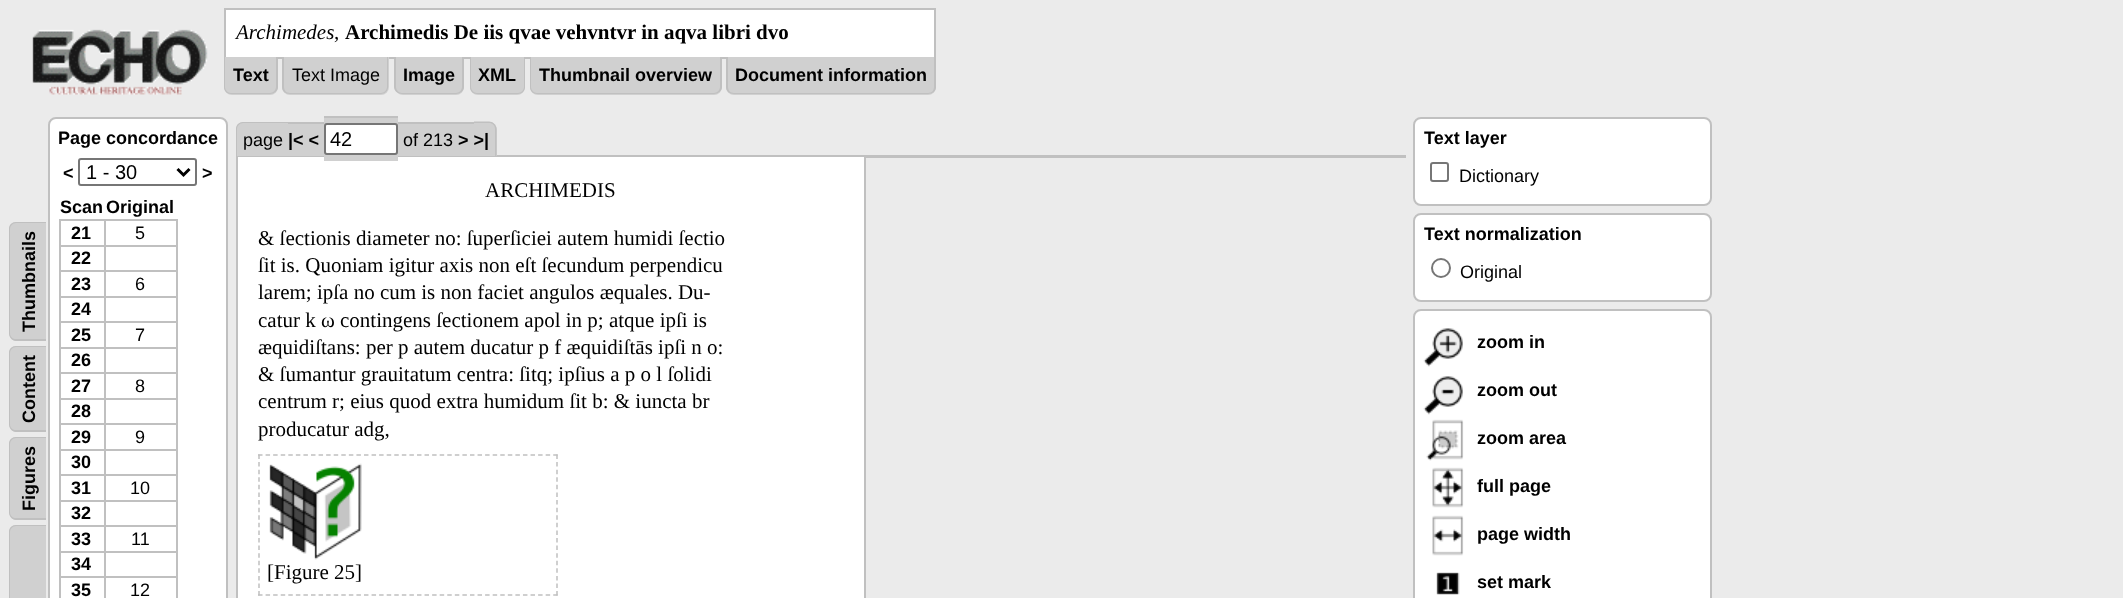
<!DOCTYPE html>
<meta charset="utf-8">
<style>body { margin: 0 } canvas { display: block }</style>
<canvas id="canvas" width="2123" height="598"></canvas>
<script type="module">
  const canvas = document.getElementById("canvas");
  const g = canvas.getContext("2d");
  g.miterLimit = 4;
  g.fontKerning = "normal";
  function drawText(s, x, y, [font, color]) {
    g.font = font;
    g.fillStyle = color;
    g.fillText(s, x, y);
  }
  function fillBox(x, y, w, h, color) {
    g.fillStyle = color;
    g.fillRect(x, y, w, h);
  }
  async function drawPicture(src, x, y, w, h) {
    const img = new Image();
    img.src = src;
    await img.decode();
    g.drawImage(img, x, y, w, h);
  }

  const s1 = ["italic 21px Liberation Serif", "#000000"];
  const s2 = ["21px Liberation Serif", "#000000"];
  const s3 = ["bold 21px Liberation Serif", "#000000"];
  const s4 = ["bold 18px Liberation Sans", "#000000"];
  const s5 = ["18px Liberation Sans", "#000000"];
  const s6 = ["20px Liberation Sans", "#000000"];

  fillBox(0, 0, 2123, 598, "#EBEBEB");
  await drawPicture("pic1.png", 32, 29, 176, 66);
  g.fillStyle = "#FFFFFF";
  g.beginPath();
  g.rect(225, 9, 710, 49);
  g.fill();
  g.strokeStyle = "#C0C0C0";
  g.lineWidth = 2;
  g.stroke();
  drawText("Archimedes", 236, 39, s1);
  drawText(",", 334, 39, s2);
  drawText("Archimedis De iis qvae vehvntvr in aqva libri dvo", 345, 39, s3);
  g.fillStyle = "#D0D0D0";
  g.beginPath();
  g.roundRect(224, 57, 54, 38, [0, 0, 8, 8]);
  g.fill();
  g.fillStyle = "#C0C0C0";
  g.beginPath();
  g.moveTo(224, 57);
  g.lineTo(278, 57);
  g.lineTo(278, 87);
  g.bezierCurveTo(278, 91, 274, 94, 270, 94);
  g.lineTo(231, 94);
  g.bezierCurveTo(227, 94, 224, 91, 224, 87);
  g.closePath();
  g.moveTo(225, 57);
  g.lineTo(276, 57);
  g.lineTo(276, 87);
  g.bezierCurveTo(276, 90, 273, 93, 270, 93);
  g.lineTo(231, 93);
  g.bezierCurveTo(228, 93, 225, 90, 225, 87);
  g.closePath();
  g.fill("evenodd");
  drawText("Text", 233, 81, s4);
  g.fillStyle = "#D0D0D0";
  g.beginPath();
  g.roundRect(282, 57, 107, 38, [0, 0, 8, 8]);
  g.fill();
  g.fillStyle = "#C0C0C0";
  g.beginPath();
  g.moveTo(282, 57);
  g.lineTo(388, 57);
  g.lineTo(388, 87);
  g.bezierCurveTo(388, 91, 385, 94, 381, 94);
  g.lineTo(290, 94);
  g.bezierCurveTo(285, 94, 282, 91, 282, 87);
  g.closePath();
  g.moveTo(284, 57);
  g.lineTo(387, 57);
  g.lineTo(387, 87);
  g.bezierCurveTo(387, 90, 384, 93, 381, 93);
  g.lineTo(290, 93);
  g.bezierCurveTo(286, 93, 284, 90, 284, 87);
  g.closePath();
  g.fill("evenodd");
  drawText("Text Image", 292, 81, s5);
  g.fillStyle = "#D0D0D0";
  g.beginPath();
  g.roundRect(395, 57, 69, 38, [0, 0, 8, 8]);
  g.fill();
  g.fillStyle = "#C0C0C0";
  g.beginPath();
  g.moveTo(394, 57);
  g.lineTo(464, 57);
  g.lineTo(464, 87);
  g.bezierCurveTo(464, 91, 460, 94, 456, 94);
  g.lineTo(402, 94);
  g.bezierCurveTo(398, 94, 394, 91, 394, 87);
  g.closePath();
  g.moveTo(396, 57);
  g.lineTo(462, 57);
  g.lineTo(462, 87);
  g.bezierCurveTo(462, 90, 459, 93, 456, 93);
  g.lineTo(402, 93);
  g.bezierCurveTo(399, 93, 396, 90, 396, 87);
  g.closePath();
  g.fill("evenodd");
  drawText("Image", 403, 81, s4);
  g.fillStyle = "#D0D0D0";
  g.beginPath();
  g.roundRect(470, 57, 55, 38, [0, 0, 8, 8]);
  g.fill();
  g.fillStyle = "#C0C0C0";
  g.beginPath();
  g.moveTo(470, 57);
  g.lineTo(525, 57);
  g.lineTo(525, 87);
  g.bezierCurveTo(525, 91, 522, 94, 518, 94);
  g.lineTo(477, 94);
  g.bezierCurveTo(473, 94, 470, 91, 470, 87);
  g.closePath();
  g.moveTo(471, 57);
  g.lineTo(524, 57);
  g.lineTo(524, 87);
  g.bezierCurveTo(524, 90, 521, 93, 518, 93);
  g.lineTo(477, 93);
  g.bezierCurveTo(474, 93, 471, 90, 471, 87);
  g.closePath();
  g.fill("evenodd");
  drawText("XML", 478, 81, s4);
  g.fillStyle = "#D0D0D0";
  g.beginPath();
  g.roundRect(530, 57, 192, 38, [0, 0, 8, 8]);
  g.fill();
  g.fillStyle = "#C0C0C0";
  g.beginPath();
  g.moveTo(530, 57);
  g.lineTo(722, 57);
  g.lineTo(722, 87);
  g.bezierCurveTo(722, 91, 718, 94, 714, 94);
  g.lineTo(537, 94);
  g.bezierCurveTo(533, 94, 530, 91, 530, 87);
  g.closePath();
  g.moveTo(531, 57);
  g.lineTo(720, 57);
  g.lineTo(720, 87);
  g.bezierCurveTo(720, 90, 717, 93, 714, 93);
  g.lineTo(537, 93);
  g.bezierCurveTo(534, 93, 531, 90, 531, 87);
  g.closePath();
  g.fill("evenodd");
  drawText("Thumbnail overview", 539, 81, s4);
  g.fillStyle = "#D0D0D0";
  g.beginPath();
  g.roundRect(726, 57, 210, 38, [0, 0, 8, 8]);
  g.fill();
  g.fillStyle = "#C0C0C0";
  g.beginPath();
  g.moveTo(726, 57);
  g.lineTo(936, 57);
  g.lineTo(936, 87);
  g.bezierCurveTo(936, 91, 933, 94, 928, 94);
  g.lineTo(734, 94);
  g.bezierCurveTo(729, 94, 726, 91, 726, 87);
  g.closePath();
  g.moveTo(728, 57);
  g.lineTo(934, 57);
  g.lineTo(934, 87);
  g.bezierCurveTo(934, 90, 932, 93, 928, 93);
  g.lineTo(734, 93);
  g.bezierCurveTo(730, 93, 728, 90, 728, 87);
  g.closePath();
  g.fill("evenodd");
  drawText("Document information", 735, 81, s4);
  g.fillStyle = "#D0D0D0";
  g.beginPath();
  g.moveTo(9, 333);
  g.lineTo(9, 229);
  g.bezierCurveTo(9, 225, 12, 222, 16, 222);
  g.lineTo(46, 222);
  g.lineTo(46, 341);
  g.lineTo(16, 341);
  g.bezierCurveTo(12, 341, 9, 337, 9, 333);
  g.closePath();
  g.fill();
  g.fillStyle = "#C0C0C0";
  g.beginPath();
  g.moveTo(9, 333);
  g.lineTo(9, 229);
  g.bezierCurveTo(9, 225, 12, 222, 16, 222);
  g.lineTo(46, 222);
  g.lineTo(46, 341);
  g.lineTo(16, 341);
  g.bezierCurveTo(12, 341, 9, 337, 9, 333);
  g.closePath();
  g.moveTo(10, 333);
  g.lineTo(10, 229);
  g.bezierCurveTo(10, 226, 13, 223, 16, 223);
  g.lineTo(46, 223);
  g.lineTo(46, 339);
  g.lineTo(16, 339);
  g.bezierCurveTo(13, 339, 10, 337, 10, 333);
  g.closePath();
  g.fill("evenodd");
  g.fillStyle = "#000000";
  g.save();
  g.translate(35, 332);
  g.rotate(-90 * Math.PI / 180);
  g.fillText("Thumbnails", 0, 0);
  g.restore();
  g.fillStyle = "#D0D0D0";
  g.beginPath();
  g.moveTo(9, 424);
  g.lineTo(9, 353);
  g.bezierCurveTo(9, 349, 12, 346, 16, 346);
  g.lineTo(46, 346);
  g.lineTo(46, 432);
  g.lineTo(16, 432);
  g.bezierCurveTo(12, 432, 9, 428, 9, 424);
  g.closePath();
  g.fill();
  g.fillStyle = "#C0C0C0";
  g.beginPath();
  g.moveTo(9, 424);
  g.lineTo(9, 353);
  g.bezierCurveTo(9, 349, 12, 346, 16, 346);
  g.lineTo(46, 346);
  g.lineTo(46, 432);
  g.lineTo(16, 432);
  g.bezierCurveTo(12, 432, 9, 428, 9, 424);
  g.closePath();
  g.moveTo(10, 424);
  g.lineTo(10, 353);
  g.bezierCurveTo(10, 350, 13, 347, 16, 347);
  g.lineTo(46, 347);
  g.lineTo(46, 430);
  g.lineTo(16, 430);
  g.bezierCurveTo(13, 430, 10, 428, 10, 424);
  g.closePath();
  g.fill("evenodd");
  g.fillStyle = "#000000";
  g.save();
  g.translate(35, 423);
  g.rotate(-90 * Math.PI / 180);
  g.fillText("Content", 0, 0);
  g.restore();
  g.fillStyle = "#D0D0D0";
  g.beginPath();
  g.moveTo(9, 512);
  g.lineTo(9, 444);
  g.bezierCurveTo(9, 440, 12, 437, 16, 437);
  g.lineTo(46, 437);
  g.lineTo(46, 520);
  g.lineTo(16, 520);
  g.bezierCurveTo(12, 520, 9, 516, 9, 512);
  g.closePath();
  g.fill();
  g.fillStyle = "#C0C0C0";
  g.beginPath();
  g.moveTo(9, 512);
  g.lineTo(9, 444);
  g.bezierCurveTo(9, 440, 12, 437, 16, 437);
  g.lineTo(46, 437);
  g.lineTo(46, 520);
  g.lineTo(16, 520);
  g.bezierCurveTo(12, 520, 9, 516, 9, 512);
  g.closePath();
  g.moveTo(10, 512);
  g.lineTo(10, 444);
  g.bezierCurveTo(10, 441, 13, 438, 16, 438);
  g.lineTo(46, 438);
  g.lineTo(46, 518);
  g.lineTo(16, 518);
  g.bezierCurveTo(13, 518, 10, 516, 10, 512);
  g.closePath();
  g.fill("evenodd");
  g.fillStyle = "#000000";
  g.save();
  g.translate(35, 511);
  g.rotate(-90 * Math.PI / 180);
  g.fillText("Figures", 0, 0);
  g.restore();
  g.fillStyle = "#D0D0D0";
  g.beginPath();
  g.moveTo(9, 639);
  g.lineTo(9, 532);
  g.bezierCurveTo(9, 528, 12, 525, 16, 525);
  g.lineTo(46, 525);
  g.lineTo(46, 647);
  g.lineTo(16, 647);
  g.bezierCurveTo(12, 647, 9, 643, 9, 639);
  g.closePath();
  g.fill();
  g.fillStyle = "#C0C0C0";
  g.beginPath();
  g.moveTo(9, 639);
  g.lineTo(9, 532);
  g.bezierCurveTo(9, 528, 12, 525, 16, 525);
  g.lineTo(46, 525);
  g.lineTo(46, 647);
  g.lineTo(16, 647);
  g.bezierCurveTo(12, 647, 9, 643, 9, 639);
  g.closePath();
  g.moveTo(10, 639);
  g.lineTo(10, 532);
  g.bezierCurveTo(10, 529, 13, 526, 16, 526);
  g.lineTo(46, 526);
  g.lineTo(46, 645);
  g.lineTo(16, 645);
  g.bezierCurveTo(13, 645, 10, 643, 10, 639);
  g.closePath();
  g.fill("evenodd");
  g.fillStyle = "#FFFFFF";
  g.beginPath();
  g.roundRect(49, 118, 178, 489, 7);
  g.fill();
  g.stroke();
  drawText("Page concordance", 58, 144, s4);
  drawText("<", 63, 179, s4);
  g.beginPath();
  g.roundRect(79, 159, 117, 26, 2);
  g.strokeStyle = "#767676";
  g.stroke();
  g.beginPath();
  g.moveTo(177.5, 169);
  g.lineTo(183.5, 175);
  g.lineTo(189.5, 169);
  g.strokeStyle = "#000000";
  g.lineWidth = 3;
  g.stroke();
  drawText("1 - 30", 86, 179, s6);
  drawText(">", 202, 179, s4);
  drawText("Scan", 60, 213, s4);
  drawText("Original", 106, 213, s4);
  fillBox(104, 219, 73, 2, "#C0C0C0");
  fillBox(104, 245, 73, 2, "#C0C0C0");
  fillBox(104, 270, 73, 2, "#C0C0C0");
  fillBox(104, 296, 73, 2, "#C0C0C0");
  fillBox(104, 321, 73, 2, "#C0C0C0");
  fillBox(104, 347, 73, 2, "#C0C0C0");
  fillBox(104, 372, 73, 2, "#C0C0C0");
  fillBox(104, 398, 73, 2, "#C0C0C0");
  fillBox(104, 423, 73, 2, "#C0C0C0");
  fillBox(104, 449, 73, 2, "#C0C0C0");
  fillBox(104, 474, 73, 2, "#C0C0C0");
  fillBox(104, 500, 73, 2, "#C0C0C0");
  fillBox(104, 525, 73, 2, "#C0C0C0");
  fillBox(104, 551, 73, 2, "#C0C0C0");
  fillBox(104, 576, 73, 2, "#C0C0C0");
  fillBox(104, 576, 2, 22, "#C0C0C0");
  fillBox(59, 576, 46, 2, "#C0C0C0");
  fillBox(104, 551, 2, 27, "#C0C0C0");
  fillBox(59, 551, 46, 2, "#C0C0C0");
  fillBox(104, 525, 2, 27, "#C0C0C0");
  fillBox(59, 525, 46, 2, "#C0C0C0");
  fillBox(104, 500, 2, 27, "#C0C0C0");
  fillBox(59, 500, 46, 2, "#C0C0C0");
  fillBox(104, 474, 2, 27, "#C0C0C0");
  fillBox(59, 474, 46, 2, "#C0C0C0");
  fillBox(104, 449, 2, 27, "#C0C0C0");
  fillBox(59, 449, 46, 2, "#C0C0C0");
  fillBox(104, 423, 2, 27, "#C0C0C0");
  fillBox(59, 423, 46, 2, "#C0C0C0");
  fillBox(104, 398, 2, 27, "#C0C0C0");
  fillBox(59, 398, 46, 2, "#C0C0C0");
  fillBox(104, 372, 2, 27, "#C0C0C0");
  fillBox(59, 372, 46, 2, "#C0C0C0");
  fillBox(104, 347, 2, 27, "#C0C0C0");
  fillBox(59, 347, 46, 2, "#C0C0C0");
  fillBox(104, 321, 2, 27, "#C0C0C0");
  fillBox(59, 321, 46, 2, "#C0C0C0");
  fillBox(104, 296, 2, 27, "#C0C0C0");
  fillBox(59, 296, 46, 2, "#C0C0C0");
  fillBox(104, 270, 2, 27, "#C0C0C0");
  fillBox(59, 270, 46, 2, "#C0C0C0");
  fillBox(104, 245, 2, 27, "#C0C0C0");
  fillBox(59, 245, 46, 2, "#C0C0C0");
  fillBox(104, 219, 2, 27, "#C0C0C0");
  fillBox(59, 219, 46, 2, "#C0C0C0");
  fillBox(59, 576, 2, 22, "#C0C0C0");
  fillBox(59, 551, 2, 27, "#C0C0C0");
  fillBox(59, 525, 2, 27, "#C0C0C0");
  fillBox(59, 500, 2, 27, "#C0C0C0");
  fillBox(59, 474, 2, 27, "#C0C0C0");
  fillBox(59, 449, 2, 27, "#C0C0C0");
  fillBox(59, 423, 2, 27, "#C0C0C0");
  fillBox(59, 398, 2, 27, "#C0C0C0");
  fillBox(59, 372, 2, 27, "#C0C0C0");
  fillBox(59, 347, 2, 27, "#C0C0C0");
  fillBox(59, 321, 2, 27, "#C0C0C0");
  fillBox(59, 296, 2, 27, "#C0C0C0");
  fillBox(59, 270, 2, 27, "#C0C0C0");
  fillBox(59, 245, 2, 27, "#C0C0C0");
  fillBox(59, 219, 2, 27, "#C0C0C0");
  drawText("21", 71, 239, s4);
  fillBox(176, 576, 2, 22, "#C0C0C0");
  fillBox(176, 551, 2, 27, "#C0C0C0");
  fillBox(176, 525, 2, 27, "#C0C0C0");
  fillBox(176, 500, 2, 27, "#C0C0C0");
  fillBox(176, 474, 2, 27, "#C0C0C0");
  fillBox(176, 449, 2, 27, "#C0C0C0");
  fillBox(176, 423, 2, 27, "#C0C0C0");
  fillBox(176, 398, 2, 27, "#C0C0C0");
  fillBox(176, 372, 2, 27, "#C0C0C0");
  fillBox(176, 347, 2, 27, "#C0C0C0");
  fillBox(176, 321, 2, 27, "#C0C0C0");
  fillBox(176, 296, 2, 27, "#C0C0C0");
  fillBox(176, 270, 2, 27, "#C0C0C0");
  fillBox(176, 245, 2, 27, "#C0C0C0");
  fillBox(176, 219, 2, 27, "#C0C0C0");
  drawText("5", 135, 239, s5);
  drawText("22", 71, 264, s4);
  drawText("23", 71, 290, s4);
  drawText("6", 135, 290, s5);
  drawText("24", 71, 315, s4);
  drawText("25", 71, 341, s4);
  drawText("7", 135, 341, s5);
  drawText("26", 71, 366, s4);
  drawText("27", 71, 392, s4);
  drawText("8", 135, 392, s5);
  drawText("28", 71, 417, s4);
  drawText("29", 71, 443, s4);
  drawText("9", 135, 443, s5);
  drawText("30", 71, 468, s4);
  drawText("31", 71, 494, s4);
  drawText("10", 130, 494, s5);
  drawText("32", 71, 519, s4);
  drawText("33", 71, 545, s4);
  drawText("11", 131, 545, s5);
  drawText("34", 71, 570, s4);
  drawText("35", 71, 596, s4);
  drawText("12", 130, 596, s5);
  g.fillStyle = "#FFFFFF";
  g.beginPath();
  g.rect(237, 156, 628, 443);
  g.fill();
  g.strokeStyle = "#C0C0C0";
  g.lineWidth = 2;
  g.stroke();
  g.fillStyle = "#D0D0D0";
  g.beginPath();
  g.roundRect(236, 122, 52, 34, [8, 0, 0, 0]);
  g.fill();
  g.fillStyle = "#C0C0C0";
  g.beginPath();
  g.moveTo(243, 122);
  g.lineTo(288, 122);
  g.lineTo(288, 156);
  g.lineTo(236, 156);
  g.lineTo(236, 129);
  g.bezierCurveTo(236, 125, 239, 122, 243, 122);
  g.closePath();
  g.moveTo(243, 123);
  g.lineTo(288, 123);
  g.lineTo(288, 156);
  g.lineTo(237, 156);
  g.lineTo(237, 129);
  g.bezierCurveTo(237, 126, 240, 123, 243, 123);
  g.closePath();
  g.fill("evenodd");
  fillBox(288, 124, 17, 32, "#D0D0D0");
  fillBox(288, 122, 17, 2, "#C0C0C0");
  fillBox(305, 122, 4, 34, "#D0D0D0");
  fillBox(305, 122, 15, 2, "#C0C0C0");
  fillBox(309, 124, 11, 32, "#D0D0D0");
  fillBox(320, 122, 4, 34, "#D0D0D0");
  fillBox(320, 122, 5, 2, "#C0C0C0");
  fillBox(324, 118, 74, 43, "#D0D0D0");
  fillBox(324, 116, 74, 2, "#C0C0C0");
  fillBox(398, 122, 6, 34, "#D0D0D0");
  fillBox(398, 122, 70, 2, "#C0C0C0");
  fillBox(404, 124, 64, 32, "#D0D0D0");
  fillBox(468, 122, 6, 34, "#D0D0D0");
  fillBox(468, 122, 6, 2, "#C0C0C0");
  g.fillStyle = "#D0D0D0";
  g.beginPath();
  g.roundRect(474, 122, 23, 34, [0, 8, 0, 0]);
  g.fill();
  g.fillStyle = "#C0C0C0";
  g.beginPath();
  g.moveTo(474, 121.5);
  g.lineTo(489, 121.5);
  g.bezierCurveTo(493, 121.5, 496.5, 125, 496.5, 129);
  g.lineTo(496.5, 156);
  g.lineTo(474, 156);
  g.closePath();
  g.moveTo(474, 123);
  g.lineTo(489, 123);
  g.bezierCurveTo(492.5, 123, 495, 125.5, 495, 129);
  g.lineTo(495, 156);
  g.lineTo(474, 156);
  g.closePath();
  g.fill("evenodd");
  drawText("page", 243, 146, s5);
  drawText("|< <", 288, 146, s4);
  g.fillStyle = "#FFFFFF";
  g.beginPath();
  g.roundRect(325, 124, 72, 30, 2);
  g.fill();
  g.strokeStyle = "#767676";
  g.stroke();
  drawText("42", 330, 146, s6);
  drawText("of 213", 403, 146, s5);
  drawText("> >|", 458, 146, s4);
  fillBox(866, 155, 540, 3, "#C0C0C0");
  drawText("ARCHIMEDIS", 485, 197, s2);
  drawText("& ſectionis diameter no: ſuperſiciei autem humidi ſectio", 258, 245, s2);
  drawText("ſit is. Quoniam igitur axis non eſt ſecundum perpendicu", 258, 272, s2);
  drawText("larem; ipſa no cum is non faciet angulos æquales. Du-", 258, 299, s2);
  drawText("catur k ω contingens ſectionem apol in p; atque ipſi is", 258, 327, s2);
  drawText("æquidiſtans: per p autem ducatur p f æquidiſtās ipſi n o:", 258, 354, s2);
  drawText("& ſumantur grauitatum centra: ſitq; ipſius a p o l ſolidi", 258, 381, s2);
  drawText("centrum r; eius quod extra humidum ſit b: & iuncta br", 258, 408, s2);
  drawText("producatur adg,", 258, 436, s2);
  g.beginPath();
  g.moveTo(258, 455);
  g.lineTo(558, 455);
  g.strokeStyle = "#C0C0C0";
  g.lineWidth = 1.5;
  g.setLineDash([4.5, 3.07]);
  g.stroke();
  g.beginPath();
  g.moveTo(557, 454.5);
  g.lineTo(557, 595.5);
  g.setLineDash([4.5, 3.09]);
  g.stroke();
  g.beginPath();
  g.moveTo(258, 595);
  g.lineTo(558, 595);
  g.setLineDash([4.5, 3.07]);
  g.stroke();
  g.beginPath();
  g.moveTo(259, 454.5);
  g.lineTo(259, 595.5);
  g.setLineDash([4.5, 3.09]);
  g.stroke();
  await drawPicture("pic2.png", 269, 463, 93, 97);
  drawText("[Figure 25]", 267, 579, s2);
  g.fillStyle = "#FFFFFF";
  g.beginPath();
  g.roundRect(1414, 118, 297, 87, 7);
  g.fill();
  g.lineWidth = 2;
  g.setLineDash([]);
  g.stroke();
  drawText("Text layer", 1424, 144, s4);
  g.beginPath();
  g.roundRect(1431, 163, 17, 18, 2);
  g.strokeStyle = "#767676";
  g.stroke();
  drawText("Dictionary", 1459, 182, s5);
  g.fillStyle = "#FFFFFF";
  g.beginPath();
  g.roundRect(1414, 214, 297, 87, 7);
  g.fill();
  g.strokeStyle = "#C0C0C0";
  g.stroke();
  drawText("Text normalization", 1424, 240, s4);
  g.beginPath();
  g.arc(1441, 268, 9, 0, Math.PI * 2);
  g.strokeStyle = "#767676";
  g.stroke();
  drawText("Original", 1460, 278, s5);
  g.fillStyle = "#FFFFFF";
  g.beginPath();
  g.roundRect(1414, 310, 297, 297, 7);
  g.fill();
  g.strokeStyle = "#C0C0C0";
  g.stroke();
  await drawPicture("pic3.png", 1423, 328, 40, 39);
  drawText("zoom in", 1477, 348, s4);
  await drawPicture("pic4.png", 1423, 376, 40, 39);
  drawText("zoom out", 1477, 396, s4);
  await drawPicture("pic5.png", 1426, 419, 38, 42);
  drawText("zoom area", 1477, 444, s4);
  await drawPicture("pic6.png", 1432, 467, 32, 41);
  drawText("full page", 1477, 492, s4);
  await drawPicture("pic7.png", 1432, 515, 32, 41);
  drawText("page width", 1477, 540, s4);
  await drawPicture("pic8.png", 1436, 572, 24, 23);
  drawText("set mark", 1477, 588, s4);
</script>
